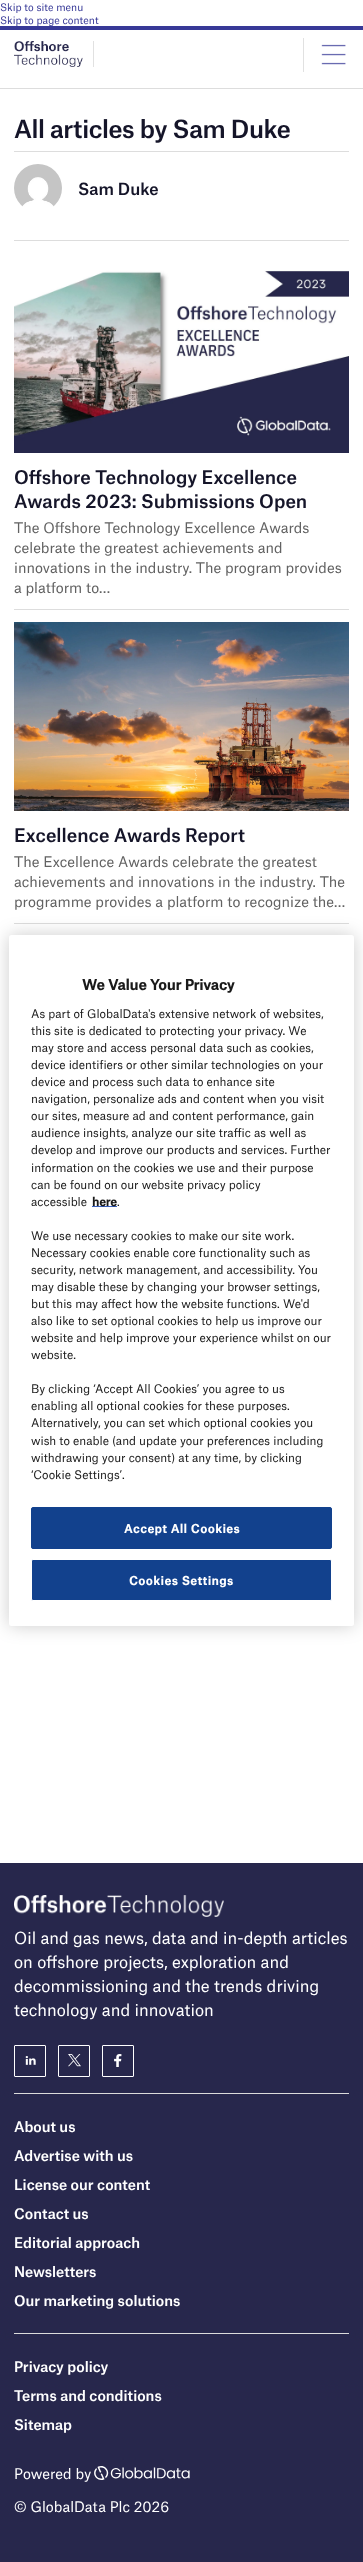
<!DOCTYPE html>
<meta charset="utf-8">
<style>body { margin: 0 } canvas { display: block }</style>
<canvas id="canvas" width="363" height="2562"></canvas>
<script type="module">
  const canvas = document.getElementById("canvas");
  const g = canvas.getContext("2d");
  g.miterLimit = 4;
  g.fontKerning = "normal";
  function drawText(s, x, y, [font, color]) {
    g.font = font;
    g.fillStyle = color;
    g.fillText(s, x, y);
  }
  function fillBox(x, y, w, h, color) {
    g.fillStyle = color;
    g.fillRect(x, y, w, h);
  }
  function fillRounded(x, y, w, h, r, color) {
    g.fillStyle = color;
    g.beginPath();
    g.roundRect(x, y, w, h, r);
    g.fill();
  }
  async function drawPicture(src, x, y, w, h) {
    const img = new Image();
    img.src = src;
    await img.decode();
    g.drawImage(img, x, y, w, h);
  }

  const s1 = ["10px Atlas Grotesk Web", "#373997"];
  const s2 = ["500 24px Atlas Grotesk Web", "#151529"];
  const s3 = ["500 16px Atlas Grotesk Web", "#151529"];
  const s4 = ["500 18px Atlas Grotesk Web", "#151529"];
  const s5 = ["14px Atlas Grotesk Web", "#626262"];
  const s6 = ["bold 14px Atlas Grotesk Web", "#1A1A1A"];
  const s7 = ["11.4px Atlas Grotesk Web", "#1A1A1A"];
  const s8 = ["bold 11.4px Atlas Grotesk Web", "#1A1A1A"];
  const s9 = ["bold 11.4px Atlas Grotesk Web", "#FFFFFF"];
  const s10 = ["16px Atlas Grotesk Web", "#FFFFFF"];
  const s11 = ["500 14px Atlas Grotesk Web", "#FFFFFF"];
  const s12 = ["14px Atlas Grotesk Web", "#FFFFFF"];

  fillBox(0, 0, 363, 2562, "#FFFFFF");
  drawText("Skip to site menu", 0, 11, s1);
  drawText("Skip to page content", 0, 24, s1);
  fillBox(0, 26, 363, 4, "#373997");
  fillBox(0, 88, 363, 1, "#DDDDDD");
  fillBox(93, 41, 1, 26, "#E1E1E1");
  await drawPicture("pic1.png", 14, 41, 69, 26);
  await drawPicture("pic2.png", 321, 44, 25, 21);
  fillBox(303, 38, 1, 34, "#E1E1E1");
  fillBox(14, 151, 335, 1, "#DDDDDD");
  g.letterSpacing = "-0.4px";
  drawText("All articles by Sam Duke", 14, 138, s2);
  fillBox(14, 240, 335, 1, "#DDDDDD");
  await drawPicture("pic3.png", 14, 164, 48, 43);
  g.letterSpacing = "0px";
  drawText("Sam Duke", 78, 195, s3);
  fillBox(14, 609, 335, 1, "#DDDDDD");
  await drawPicture("pic4.png", 14, 270, 335, 183);
  drawText("Offshore Technology Excellence", 14, 484, s4);
  drawText("Awards 2023: Submissions Open", 14, 508, s4);
  drawText("The Offshore Technology Excellence Awards", 14, 533, s5);
  drawText("celebrate the greatest achievements and", 14, 553, s5);
  drawText("innovations in the industry. The program provides", 14, 573, s5);
  drawText("a platform to…", 14, 593, s5);
  fillBox(14, 923, 335, 1, "#DDDDDD");
  await drawPicture("pic5.png", 14, 622, 335, 189);
  drawText("Excellence Awards Report", 14, 842, s4);
  drawText("The Excellence Awards celebrate the greatest", 14, 867, s5);
  drawText("achievements and innovations in the industry. The", 14, 887, s5);
  drawText("programme provides a platform to recognize the…", 14, 907, s5);
  g.fillStyle = "rgba(0, 0, 0, 0.2)";
  g.filter = "blur(9px)";
  g.beginPath();
  g.roundRect(9, 935, 345, 691, 2.5);
  g.fill();
  g.filter = "none";
  fillRounded(9, 935, 345, 691, 2.5, "#FFFFFF");
  drawText("We Value Your Privacy", 82, 990, s6);
  drawText("As part of GlobalData's extensive network of websites,", 31, 1018, s7);
  drawText("this site is dedicated to protecting your privacy. We", 31, 1035, s7);
  drawText("may store and access personal data such as cookies,", 31, 1052, s7);
  drawText("device identifiers or other similar technologies on your", 31, 1069, s7);
  drawText("device and process such data to enhance site", 31, 1086, s7);
  drawText("navigation, personalize ads and content when you visit", 31, 1103, s7);
  drawText("our sites, measure ad and content performance, gain", 31, 1120, s7);
  drawText("audience insights, analyze our site traffic as well as", 31, 1137, s7);
  drawText("develop and improve our products and services. Further", 31, 1154, s7);
  drawText("information on the cookies we use and their purpose", 31, 1172, s7);
  drawText("can be found on our website privacy policy", 31, 1189, s7);
  drawText("accessible", 31, 1206, s7);
  fillBox(92, 1206, 25, 1, "#3860BE");
  drawText("here", 92, 1206, s8);
  drawText(".", 117, 1206, s7);
  drawText("We use necessary cookies to make our site work.", 31, 1240, s7);
  drawText("Necessary cookies enable core functionality such as", 31, 1257, s7);
  drawText("security, network management, and accessibility. You", 31, 1274, s7);
  drawText("may disable these by changing your browser settings,", 31, 1291, s7);
  drawText("but this may affect how the website functions. We'd", 31, 1308, s7);
  drawText("also like to set optional cookies to help us improve our", 31, 1325, s7);
  drawText("website and help improve your experience whilst on our", 31, 1342, s7);
  drawText("website.", 31, 1359, s7);
  drawText("By clicking ‘Accept All Cookies’ you agree to us", 31, 1393, s7);
  drawText("enabling all optional cookies for these purposes.", 31, 1410, s7);
  drawText("Alternatively, you can set which optional cookies you", 31, 1427, s7);
  drawText("wish to enable (and update your preferences including", 31, 1445, s7);
  drawText("withdrawing your consent) at any time, by clicking", 31, 1462, s7);
  drawText("‘Cookie Settings’.", 31, 1479, s7);
  g.fillStyle = "#12418D";
  g.beginPath();
  g.roundRect(31.5, 1507.5, 300, 41, 1.5);
  g.fill();
  g.strokeStyle = "#12418D";
  g.stroke();
  g.letterSpacing = "0.6px";
  drawText("Accept All Cookies", 124, 1533, s9);
  g.fillStyle = "#12418D";
  g.beginPath();
  g.roundRect(31.5, 1559.5, 300, 41, 1.5);
  g.fill();
  g.strokeStyle = "#FFFFFF";
  g.stroke();
  drawText("Cookies Settings", 129, 1585, s9);
  fillBox(0, 1863, 363, 699, "#27274C");
  await drawPicture("pic6.png", 14, 1895, 210, 22);
  g.letterSpacing = "0px";
  drawText("Oil and gas news, data and in-depth articles", 14, 1944, s10);
  drawText("on offshore projects, exploration and", 14, 1968, s10);
  drawText("decommissioning and the trends driving", 14, 1992, s10);
  drawText("technology and innovation", 14, 2016, s10);
  g.beginPath();
  g.roundRect(14.5, 2045.5, 31, 31, 0.5);
  g.stroke();
  await drawPicture("pic7.png", 25, 2056, 11, 9);
  g.beginPath();
  g.roundRect(58.5, 2045.5, 31, 31, 0.5);
  g.stroke();
  await drawPicture("pic8.png", 68, 2054, 13, 13);
  g.beginPath();
  g.roundRect(102.5, 2045.5, 31, 31, 0.5);
  g.stroke();
  await drawPicture("pic9.png", 114, 2054, 8, 13);
  fillBox(14, 2093, 335, 1, "#DBDBDB");
  drawText("About us", 14, 2132, s11);
  drawText("Advertise with us", 14, 2161, s11);
  drawText("License our content", 14, 2190, s11);
  drawText("Contact us", 14, 2219, s11);
  drawText("Editorial approach", 14, 2248, s11);
  drawText("Newsletters", 14, 2277, s11);
  drawText("Our marketing solutions", 14, 2306, s11);
  fillBox(14, 2333, 335, 1, "#DBDBDB");
  drawText("Privacy policy", 14, 2372, s11);
  drawText("Terms and conditions", 14, 2401, s11);
  drawText("Sitemap", 14, 2430, s11);
  drawText("Powered by", 14, 2479, s12);
  await drawPicture("pic10.png", 94, 2466, 96, 14);
  drawText("© GlobalData Plc 2026", 14, 2512, s12);
</script>
